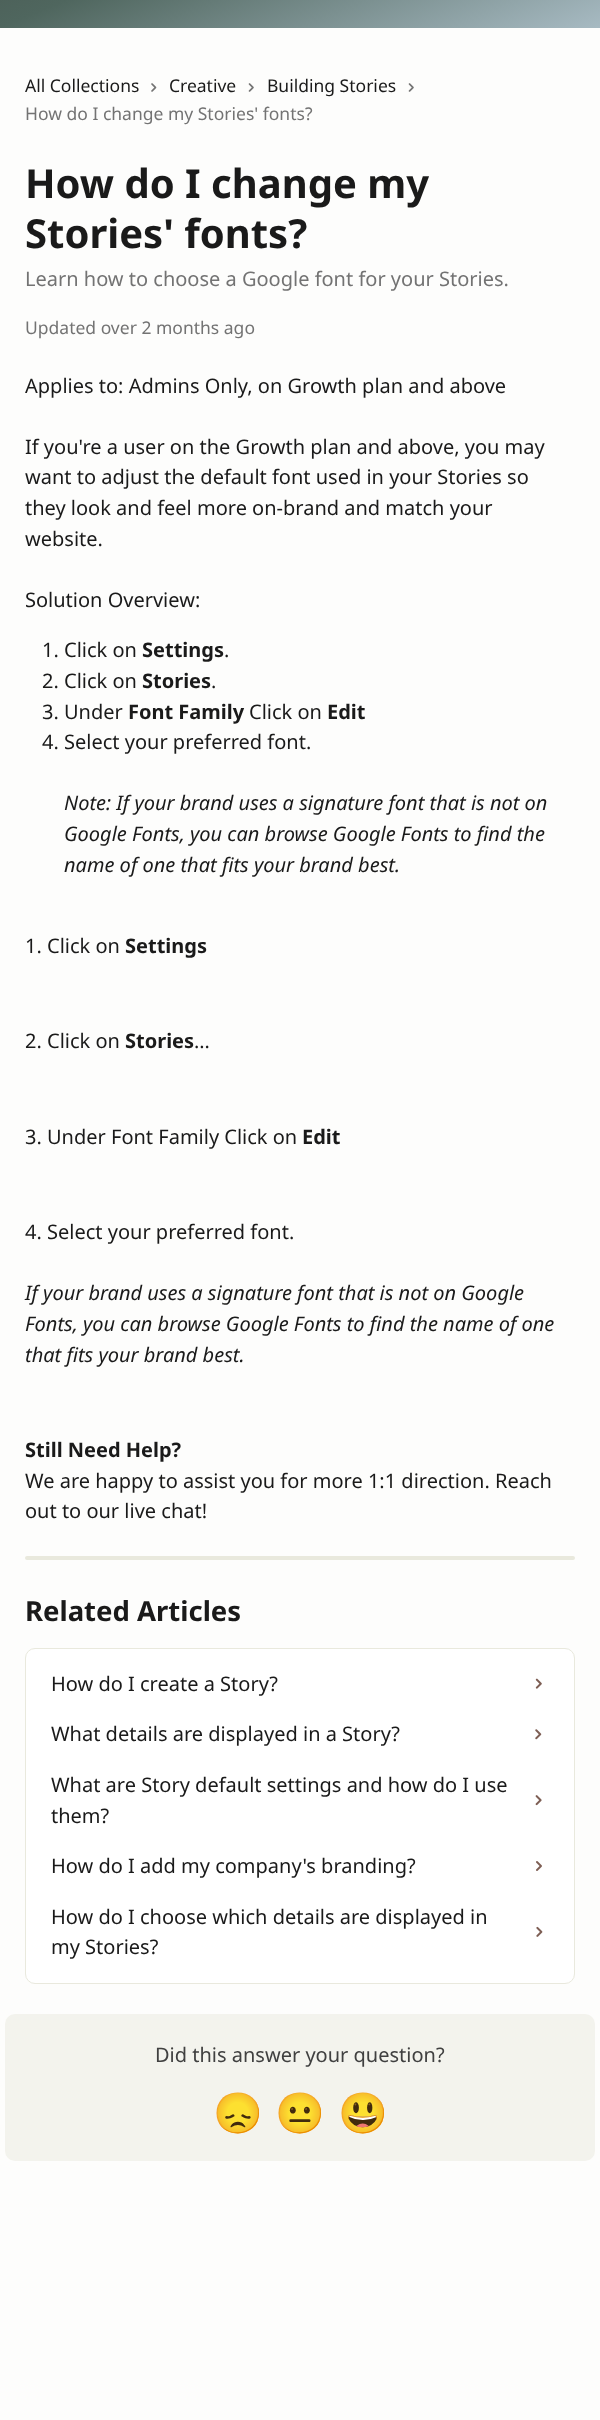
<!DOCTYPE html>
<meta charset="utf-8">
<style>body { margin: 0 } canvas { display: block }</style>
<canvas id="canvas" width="600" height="2420"></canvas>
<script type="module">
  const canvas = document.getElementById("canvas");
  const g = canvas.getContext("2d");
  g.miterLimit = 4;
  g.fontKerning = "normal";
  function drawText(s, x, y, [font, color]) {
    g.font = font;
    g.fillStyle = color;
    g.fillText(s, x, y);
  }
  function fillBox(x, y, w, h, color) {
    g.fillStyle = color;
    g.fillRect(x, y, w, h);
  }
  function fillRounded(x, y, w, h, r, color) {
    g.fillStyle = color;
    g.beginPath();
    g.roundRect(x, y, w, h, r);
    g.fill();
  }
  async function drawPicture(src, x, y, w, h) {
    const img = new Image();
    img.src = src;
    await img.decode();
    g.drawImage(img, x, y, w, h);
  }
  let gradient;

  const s1 = ["17.5px Noto Sans", "#1A1A1A"];
  const s2 = ["17.5px Noto Sans", "#737373"];
  const s3 = ["bold 40px Noto Sans", "#1A1A1A"];
  const s4 = ["20px Noto Sans", "#737373"];
  const s5 = ["20px Noto Sans", "#1A1A1A"];
  const s6 = ["bold 20px Noto Sans", "#1A1A1A"];
  const s7 = ["italic 20px Noto Sans", "#1A1A1A"];
  const s8 = ["bold 27.5px Noto Sans", "#1A1A1A"];
  const s9 = ["20px Noto Sans", "#404040"];
  const s10 = ["40px Noto Color Emoji", "#404040"];

  fillBox(0, 0, 600, 2420, "#FDFDFC");
  gradient = g.createLinearGradient(215, -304, 385, 115);
  gradient.addColorStop(0, "#3F443E");
  gradient.addColorStop(0.5, "#4F665E");
  gradient.addColorStop(1, "#A7BAC2");
  g.fillStyle = gradient;
  g.fillRect(0, 0, 600, 28);
  drawText("All Collections", 25, 92, s1);
  await drawPicture("pic1.png", 151, 83, 6, 9);
  drawText("Creative", 169, 92, s1);
  await drawPicture("pic2.png", 248, 83, 6, 9);
  drawText("Building Stories", 267, 92, s1);
  await drawPicture("pic2.png", 408, 83, 6, 9);
  drawText("How do I change my Stories' fonts?", 25, 120, s2);
  drawText("How do I change my", 25, 198, s3);
  drawText("Stories' fonts?", 25, 248, s3);
  drawText("Learn how to choose a Google font for your Stories.", 25, 286, s4);
  drawText("Updated over 2 months ago", 25, 334, s2);
  drawText("Applies to: Admins Only, on Growth plan and above", 25, 393, s5);
  drawText("If you're a user on the Growth plan and above, you may", 25, 454, s5);
  drawText("want to adjust the default font used in your Stories so", 25, 484, s5);
  drawText("they look and feel more on-brand and match your", 25, 515, s5);
  drawText("website.", 25, 546, s5);
  drawText("Solution Overview:", 25, 607, s5);
  drawText("1. Click on", 42, 657, s5);
  drawText("Settings", 142, 657, s6);
  drawText(".", 224, 657, s5);
  drawText("2. Click on", 42, 688, s5);
  drawText("Stories", 142, 688, s6);
  drawText(".", 211, 688, s5);
  drawText("3. Under", 42, 719, s5);
  drawText("Font Family", 128, 719, s6);
  drawText("Click on", 249, 719, s5);
  drawText("Edit", 327, 719, s6);
  drawText("4. Select your preferred font.", 42, 749, s5);
  drawText("Note: If your brand uses a signature font that is not on", 64, 810, s7);
  drawText("Google Fonts, you can browse Google Fonts to find the", 64, 841, s7);
  drawText("name of one that fits your brand best.", 64, 872, s7);
  drawText("1. Click on", 25, 953, s5);
  drawText("Settings", 125, 953, s6);
  drawText("2. Click on", 25, 1048, s5);
  drawText("Stories", 125, 1048, s6);
  drawText("…", 194, 1048, s5);
  drawText("3. Under Font Family Click on", 25, 1144, s5);
  drawText("Edit", 302, 1144, s6);
  drawText("4. Select your preferred font.", 25, 1239, s5);
  drawText("If your brand uses a signature font that is not on Google", 25, 1300, s7);
  drawText("Fonts, you can browse Google Fonts to find the name of one", 25, 1331, s7);
  drawText("that fits your brand best.", 25, 1362, s7);
  drawText("Still Need Help?", 25, 1457, s6);
  drawText("We are happy to assist you for more 1:1 direction. Reach", 25, 1488, s5);
  drawText("out to our live chat!", 25, 1518, s5);
  fillRounded(25, 1556, 550, 4, 2, "#E9E9DD");
  drawText("Related Articles", 25, 1621, s8);
  g.fillStyle = "#FFFFFF";
  g.beginPath();
  g.roundRect(25.5, 1648.5, 549, 335, 9.5);
  g.fill();
  g.strokeStyle = "#E9E9DD";
  g.stroke();
  drawText("How do I create a Story?", 51, 1691, s5);
  await drawPicture("pic3.png", 535, 1678, 7, 11);
  drawText("What details are displayed in a Story?", 51, 1741, s5);
  await drawPicture("pic4.png", 535, 1729, 7, 11);
  drawText("What are Story default settings and how do I use", 51, 1792, s5);
  drawText("them?", 51, 1823, s5);
  await drawPicture("pic5.png", 535, 1795, 7, 11);
  drawText("How do I add my company's branding?", 51, 1873, s5);
  await drawPicture("pic6.png", 536, 1861, 6, 10);
  drawText("How do I choose which details are displayed in", 51, 1924, s5);
  drawText("my Stories?", 51, 1954, s5);
  await drawPicture("pic7.png", 536, 1926, 7, 11);
  fillRounded(5, 2014, 590, 147, 10, "#F3F3ED");
  drawText("Did this answer your question?", 155, 2062, s9);
  drawText("😞", 213, 2127, s10);
  drawText("😐", 275, 2127, s10);
  drawText("😃", 338, 2127, s10);
</script>
